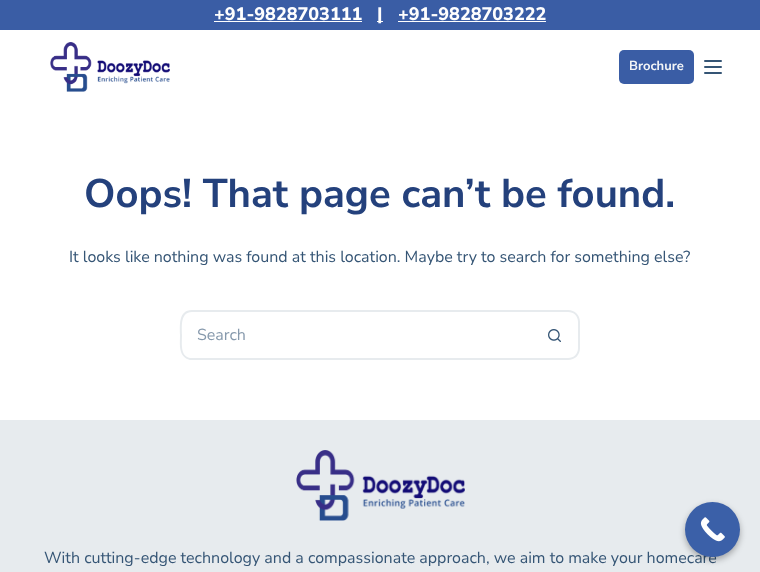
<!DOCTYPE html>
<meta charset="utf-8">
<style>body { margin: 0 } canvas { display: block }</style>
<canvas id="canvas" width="760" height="572"></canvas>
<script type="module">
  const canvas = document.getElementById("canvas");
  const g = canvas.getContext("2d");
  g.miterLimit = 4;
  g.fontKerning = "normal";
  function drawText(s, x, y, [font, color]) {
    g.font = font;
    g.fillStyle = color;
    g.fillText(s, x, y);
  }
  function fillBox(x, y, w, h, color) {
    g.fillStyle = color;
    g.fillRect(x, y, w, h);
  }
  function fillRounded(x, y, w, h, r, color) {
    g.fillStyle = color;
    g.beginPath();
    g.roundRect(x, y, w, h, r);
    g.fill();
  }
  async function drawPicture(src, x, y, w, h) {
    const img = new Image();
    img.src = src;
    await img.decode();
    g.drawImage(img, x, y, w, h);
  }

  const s1 = ["800 18px Nunito Sans", "#FEFEFE"];
  const s2 = ["bold 13px Nunito Sans", "#F3F5F7"];
  const s3 = ["bold 40px Nunito Sans", "#24417C"];
  const s4 = ["16px Nunito Sans", "#355575"];
  const s5 = ["16px Nunito Sans", "#8699AC"];

  fillBox(0, 0, 760, 572, "#FFFFFF");
  fillBox(0, 0, 760, 30, "#3A5DA5");
  drawText("+91-9828703111", 214, 20, s1);
  fillBox(214, 21, 148, 1, "#FEFEFE");
  fillBox(377, 21, 6, 1, "#FEFEFE");
  drawText("|", 377, 20, s1);
  drawText("+91-9828703222", 398, 20, s1);
  fillBox(398, 21, 148, 1, "#FEFEFE");
  await drawPicture("pic1.png", 50, 42, 120, 50);
  fillRounded(619, 50, 75, 34, 5, "#3A5DA5");
  drawText("Brochure", 629, 70, s2);
  fillRounded(704, 60, 18, 2, 1, "#355575");
  fillRounded(704, 66, 18, 2, 1, "#355575");
  fillRounded(704, 72, 18, 2, 1, "#355575");
  drawText("Oops! That page can’t be found.", 84, 207, s3);
  drawText("It looks like nothing was found at this location. Maybe try to search for something else?", 69, 262, s4);
  g.fillStyle = "#E7EBEE";
  g.beginPath();
  g.moveTo(192, 310);
  g.lineTo(530, 310);
  g.lineTo(530, 360);
  g.lineTo(190, 360);
  g.bezierCurveTo(178, 357, 180, 344, 180, 335);
  g.bezierCurveTo(180, 326, 178, 310, 192, 310);
  g.closePath();
  g.moveTo(192, 312);
  g.lineTo(530, 312);
  g.lineTo(530, 358);
  g.lineTo(190, 358);
  g.bezierCurveTo(180, 356, 182, 343, 182, 335);
  g.bezierCurveTo(182, 327, 180, 312, 192, 312);
  g.closePath();
  g.fill("evenodd");
  drawText("Search", 197, 340, s5);
  g.fillStyle = "#E7EBEE";
  g.beginPath();
  g.moveTo(530, 310);
  g.lineTo(568, 310);
  g.bezierCurveTo(575, 310, 580, 315, 580, 322);
  g.lineTo(580, 348);
  g.bezierCurveTo(580, 355, 575, 360, 568, 360);
  g.lineTo(530, 360);
  g.closePath();
  g.moveTo(530, 312);
  g.lineTo(568, 312);
  g.bezierCurveTo(574, 312, 578, 316, 578, 322);
  g.lineTo(578, 348);
  g.bezierCurveTo(578, 354, 574, 358, 568, 358);
  g.lineTo(530, 358);
  g.closePath();
  g.fill("evenodd");
  await drawPicture("pic2.png", 548, 329, 13, 13);
  fillBox(0, 420, 760, 152, "#E7EBEE");
  await drawPicture("pic3.png", 296, 450, 169, 71);
  drawText("With cutting-edge technology and a compassionate approach, we aim to make your homecare", 44, 563, s4);
  g.fillStyle = "rgba(0, 0, 0, 0.3)";
  g.filter = "blur(3px)";
  g.beginPath();
  g.roundRect(685, 505, 55, 55, 27.5);
  g.fill();
  g.filter = "none";
  g.fillStyle = "#3B60A8";
  g.beginPath();
  g.arc(712.5, 529.5, 27.5, 0, Math.PI * 2);
  g.fill();
  await drawPicture("pic4.png", 700, 517, 25, 25);
</script>
